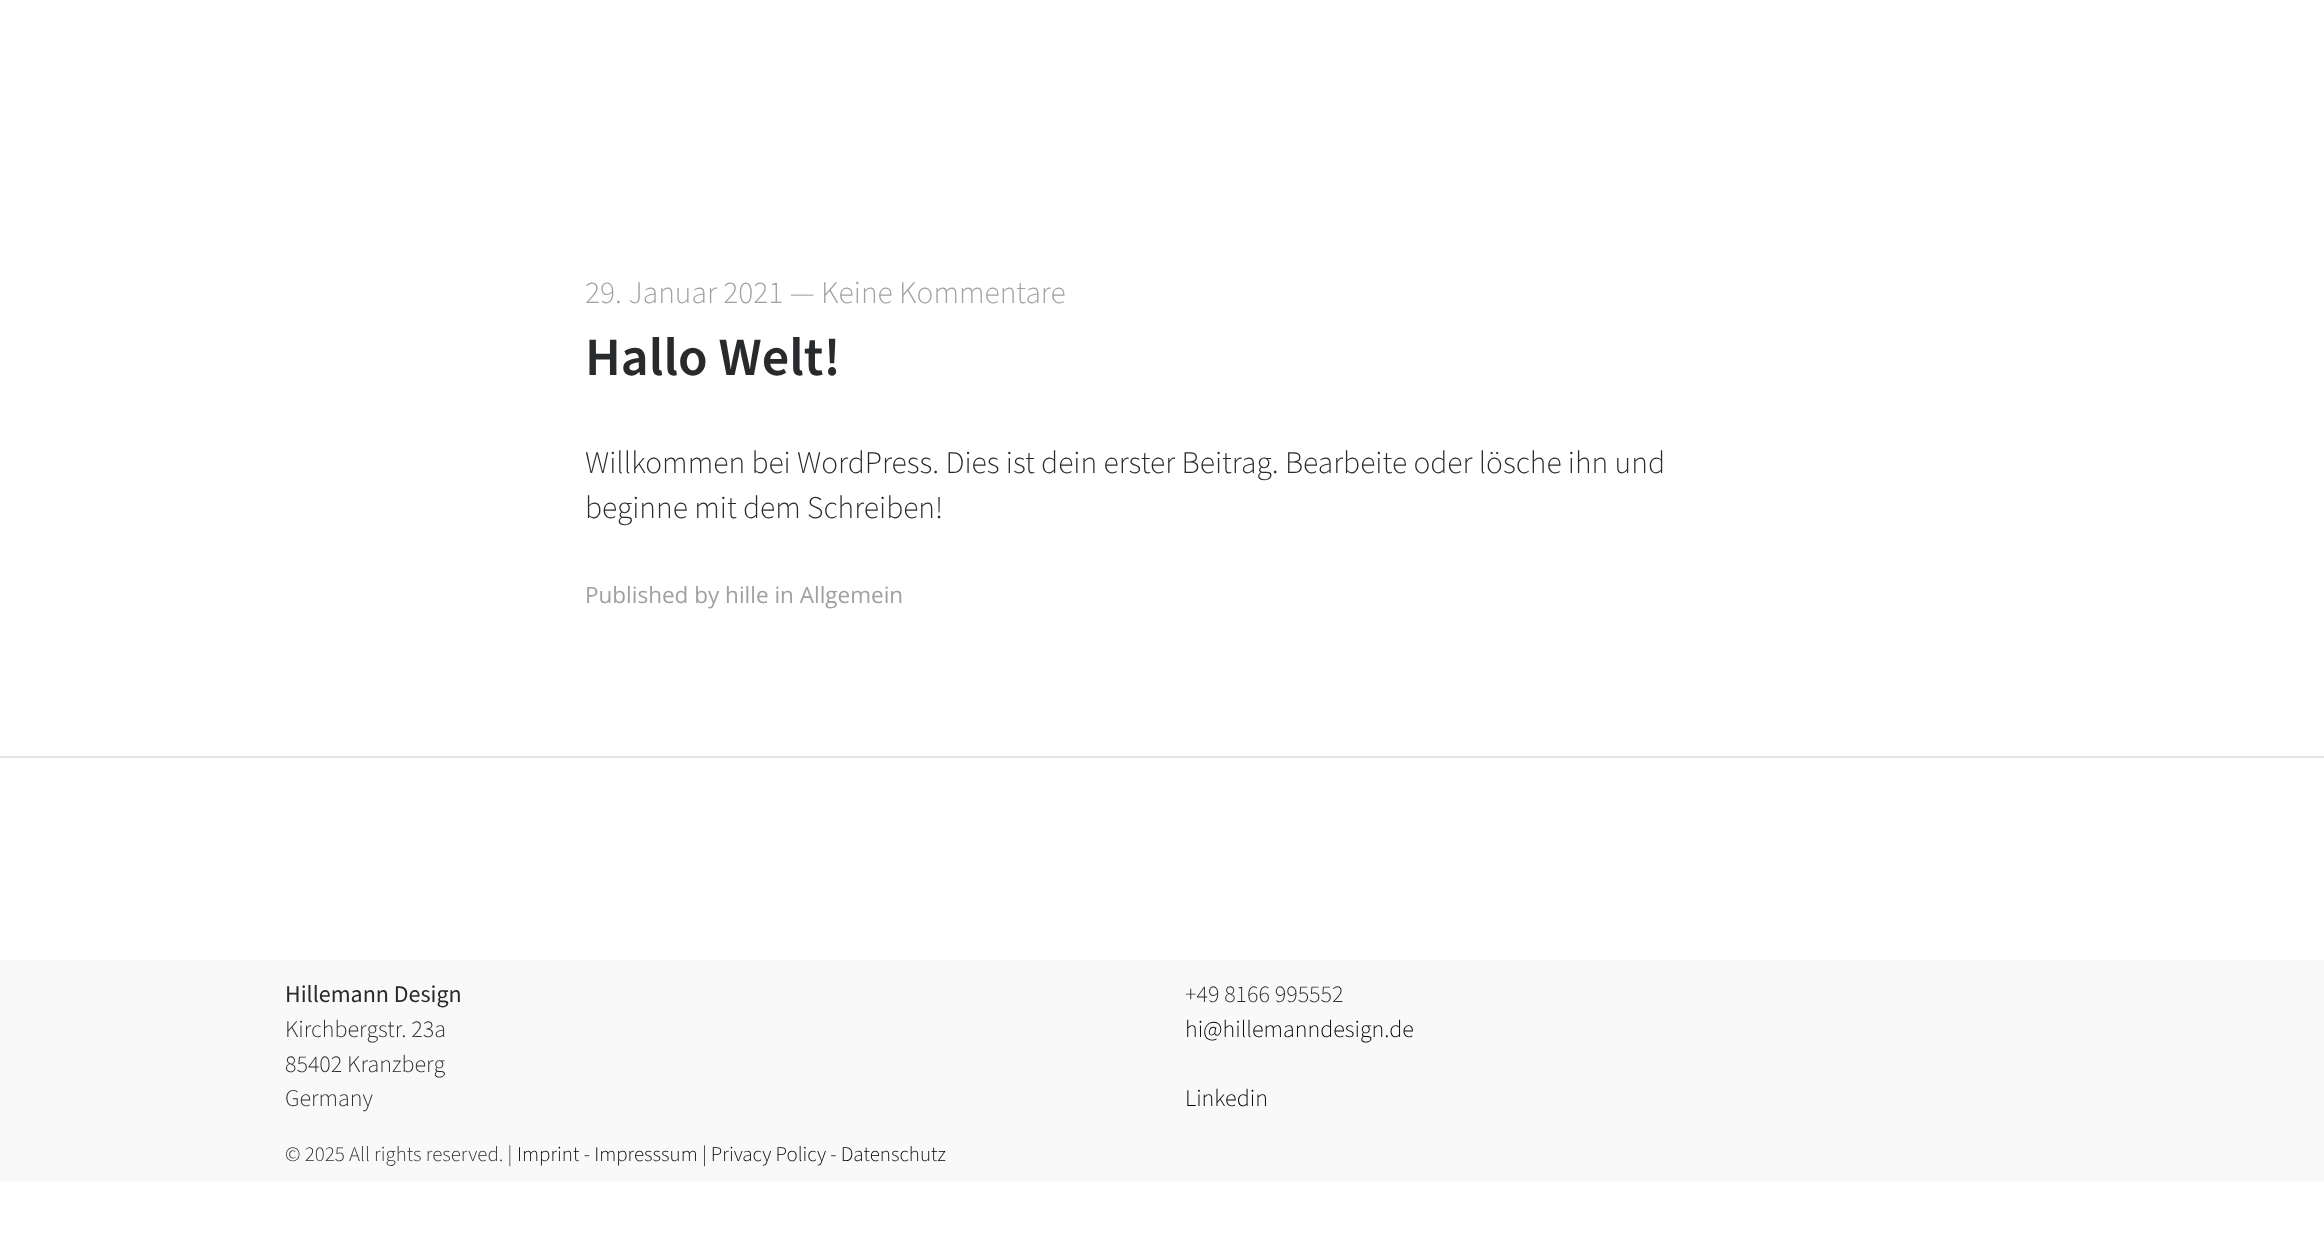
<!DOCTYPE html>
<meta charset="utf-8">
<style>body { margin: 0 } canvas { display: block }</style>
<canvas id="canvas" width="2324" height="1252"></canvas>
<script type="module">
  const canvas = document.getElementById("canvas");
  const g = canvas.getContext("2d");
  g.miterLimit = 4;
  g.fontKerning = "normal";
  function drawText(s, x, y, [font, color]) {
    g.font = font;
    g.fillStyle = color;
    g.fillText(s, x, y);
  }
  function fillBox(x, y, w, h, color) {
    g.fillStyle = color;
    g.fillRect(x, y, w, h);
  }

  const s1 = ["300 31.5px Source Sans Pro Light", "#A0A0A0"];
  const s2 = ["600 54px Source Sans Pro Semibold", "#292A2C"];
  const s3 = ["300 31.5px Source Sans Pro Light", "#292A2C"];
  const s4 = ["22.5px Open Sans", "#A0A0A0"];
  const s5 = ["24px Source Sans Pro", "#292A2C"];
  const s6 = ["300 24px Source Sans Pro Light", "#292A2C"];
  const s7 = ["300 24px Source Sans Pro Light", "#000000"];
  const s8 = ["300 21px Source Sans Pro Light", "#292A2C"];
  const s9 = ["300 21px Source Sans Pro Light", "#000000"];

  fillBox(0, 0, 2324, 1252, "#FFFFFF");
  drawText("29. Januar 2021 — Keine Kommentare", 585, 303, s1);
  drawText("Hallo Welt!", 585, 375, s2);
  drawText("Willkommen bei WordPress. Dies ist dein erster Beitrag. Bearbeite oder lösche ihn und", 585, 473, s3);
  drawText("beginne mit dem Schreiben!", 585, 518, s3);
  drawText("Published by hille in Allgemein", 585, 603, s4);
  fillBox(0, 756, 2324, 2, "#E6E6E6");
  fillBox(0, 960, 2324, 222, "#F9F9F9");
  drawText("Hillemann Design", 285, 1002, s5);
  drawText("Kirchbergstr. 23a", 285, 1037, s6);
  drawText("85402 Kranzberg", 285, 1072, s6);
  drawText("Germany", 285, 1106, s6);
  drawText("+49 8166 995552", 1185, 1002, s6);
  drawText("hi@hillemanndesign.de", 1185, 1037, s7);
  drawText("Linkedin", 1185, 1106, s7);
  drawText("© 2025 All rights reserved. |", 285, 1161, s8);
  drawText("Imprint - Impresssum | Privacy Policy - Datenschutz", 517, 1161, s9);
</script>
